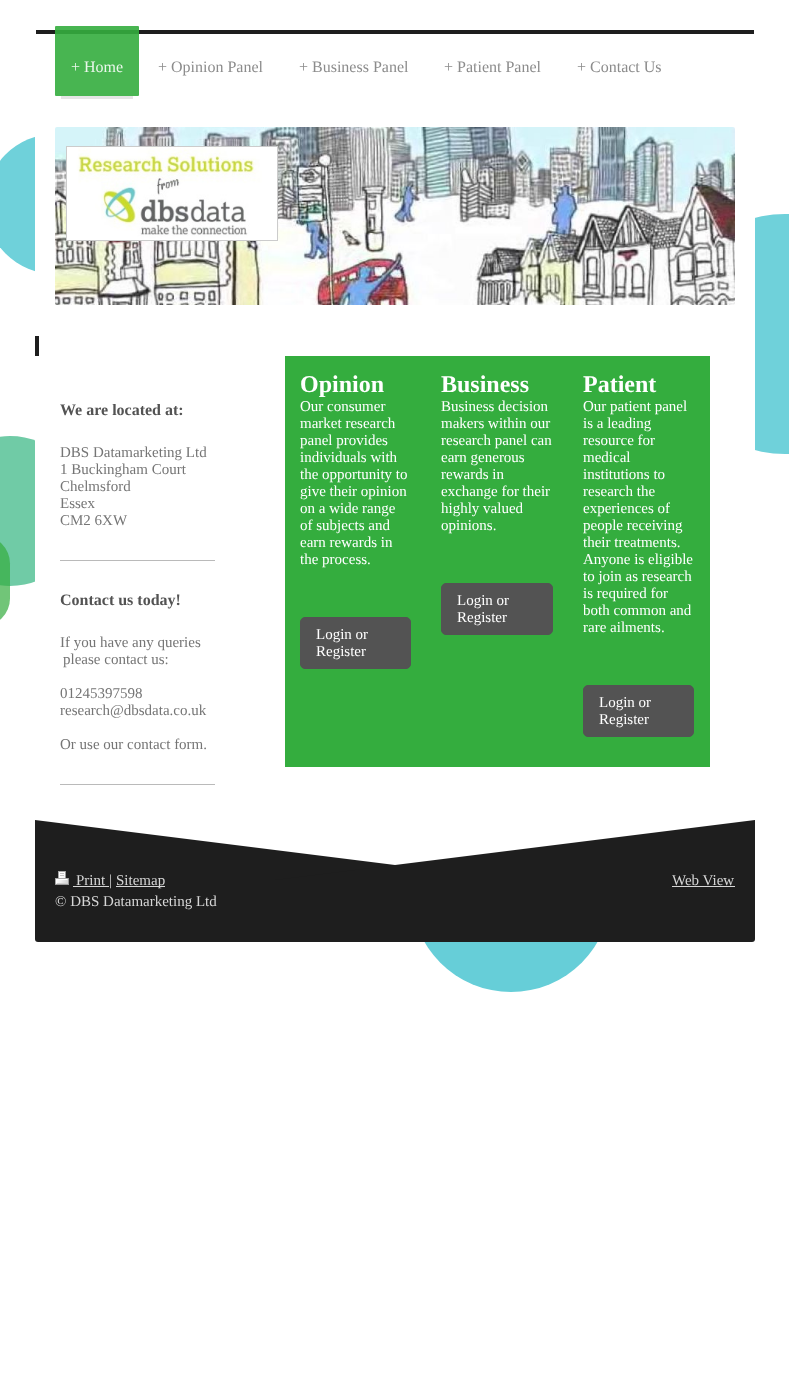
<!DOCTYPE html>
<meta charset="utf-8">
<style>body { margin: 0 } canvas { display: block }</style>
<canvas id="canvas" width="789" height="1399"></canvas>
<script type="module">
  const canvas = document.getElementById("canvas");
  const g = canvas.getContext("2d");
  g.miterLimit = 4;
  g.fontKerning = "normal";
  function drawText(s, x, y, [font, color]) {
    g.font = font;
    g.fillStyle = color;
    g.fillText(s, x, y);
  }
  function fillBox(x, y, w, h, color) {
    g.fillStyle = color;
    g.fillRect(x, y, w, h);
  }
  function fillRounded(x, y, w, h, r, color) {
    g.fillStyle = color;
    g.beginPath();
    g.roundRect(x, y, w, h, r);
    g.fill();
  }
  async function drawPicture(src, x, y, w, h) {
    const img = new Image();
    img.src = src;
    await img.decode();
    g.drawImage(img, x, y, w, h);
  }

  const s1 = ["16px Liberation Serif", "#EBF7EC"];
  const s2 = ["16px Liberation Serif", "#8C8C8C"];
  const s3 = ["bold 16px Liberation Serif", "#535353"];
  const s4 = ["15px Liberation Serif", "#757575"];
  const s5 = ["bold 24px Liberation Serif", "#FFFFFF"];
  const s6 = ["15px Liberation Serif", "#FFFFFF"];
  const s7 = ["15px Liberation Serif", "#D6D6D6"];

  fillBox(0, 0, 789, 1399, "#FFFFFF");
  fillBox(36, 30, 718, 4, "#1E1E1E");
  g.save();
  g.beginPath();
  g.rect(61, 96, 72, 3);
  g.clip();
  g.fillStyle = "rgba(0, 0, 0, 0.1)";
  g.filter = "blur(0.5px)";
  g.beginPath();
  g.rect(61, 41, 72, 58);
  g.fill();
  g.filter = "none";
  g.restore();
  fillRounded(55, 26, 84, 70, 1, "rgba(52, 173, 62, 0.9)");
  drawText("+ Home", 71, 72, s1);
  drawText("+ Opinion Panel", 158, 72, s2);
  drawText("+ Business Panel", 299, 72, s2);
  drawText("+ Patient Panel", 444, 72, s2);
  drawText("+ Contact Us", 577, 72, s2);
  g.fillStyle = "#6FD1DA";
  g.beginPath();
  g.arc(55, 204, 70, 0, Math.PI * 2);
  g.fill();
  g.beginPath();
  g.arc(785, 334, 120, 0, Math.PI * 2);
  g.fill();
  g.fillStyle = "#70CBA6";
  g.beginPath();
  g.arc(10, 511, 75, 0, Math.PI * 2);
  g.fill();
  g.fillStyle = "#66CED8";
  g.beginPath();
  g.arc(511, 892, 100, 0, Math.PI * 2);
  g.fill();
  fillBox(35, 134, 720, 731, "#FFFFFF");
  await drawPicture("pic1.png", 55, 127, 680, 178);
  g.strokeStyle = "#CCCCCC";
  g.strokeRect(66.5, 146.5, 211, 94);
  await drawPicture("pic2.png", 67, 147, 210, 93);
  fillBox(35, 336, 4, 20, "#1E1E1E");
  drawText("We are located at:", 60, 415, s3);
  drawText("DBS Datamarketing Ltd", 60, 457, s4);
  drawText("1 Buckingham Court", 60, 474, s4);
  drawText("Chelmsford", 60, 491, s4);
  drawText("Essex", 60, 508, s4);
  drawText("CM2 6XW", 60, 525, s4);
  fillBox(60, 560, 155, 1, "#BABABA");
  drawText("Contact us today!", 60, 605, s3);
  drawText("If you have any queries", 60, 647, s4);
  drawText("please contact us:", 63, 664, s4);
  drawText("01245397598", 60, 698, s4);
  drawText("research@dbsdata.co.uk", 60, 715, s4);
  drawText("Or use our contact form.", 60, 749, s4);
  fillBox(60, 784, 155, 1, "#BABABA");
  fillBox(285, 356, 425, 411, "#34AD3E");
  drawText("Opinion", 300, 392, s5);
  drawText("Our consumer", 300, 411, s6);
  drawText("market research", 300, 428, s6);
  drawText("panel provides", 300, 445, s6);
  drawText("individuals with", 300, 462, s6);
  drawText("the opportunity to", 300, 479, s6);
  drawText("give their opinion", 300, 496, s6);
  drawText("on a wide range", 300, 513, s6);
  drawText("of subjects and", 300, 530, s6);
  drawText("earn rewards in", 300, 547, s6);
  drawText("the process.", 300, 564, s6);
  g.fillStyle = "#535353";
  g.beginPath();
  g.roundRect(300.5, 617.5, 110, 51, 4.5);
  g.fill();
  g.strokeStyle = "#535353";
  g.stroke();
  drawText("Login or", 316, 639, s6);
  drawText("Register", 316, 656, s6);
  drawText("Business", 441, 392, s5);
  drawText("Business decision", 441, 411, s6);
  drawText("makers within our", 441, 428, s6);
  drawText("research panel can", 441, 445, s6);
  drawText("earn generous", 441, 462, s6);
  drawText("rewards in", 441, 479, s6);
  drawText("exchange for their", 441, 496, s6);
  drawText("highly valued", 441, 513, s6);
  drawText("opinions.", 441, 530, s6);
  g.fillStyle = "#535353";
  g.beginPath();
  g.roundRect(441.5, 583.5, 111, 51, 4.5);
  g.fill();
  g.stroke();
  drawText("Login or", 457, 605, s6);
  drawText("Register", 457, 622, s6);
  drawText("Patient", 583, 392, s5);
  drawText("Our patient panel", 583, 411, s6);
  drawText("is a leading", 583, 428, s6);
  drawText("resource for", 583, 445, s6);
  drawText("medical", 583, 462, s6);
  drawText("institutions to", 583, 479, s6);
  drawText("research the", 583, 496, s6);
  drawText("experiences of", 583, 513, s6);
  drawText("people receiving", 583, 530, s6);
  drawText("their treatments.", 583, 547, s6);
  drawText("Anyone is eligible", 583, 564, s6);
  drawText("to join as research", 583, 581, s6);
  drawText("is required for", 583, 598, s6);
  drawText("both common and", 583, 615, s6);
  drawText("rare ailments.", 583, 632, s6);
  g.fillStyle = "#535353";
  g.beginPath();
  g.roundRect(583.5, 685.5, 110, 51, 4.5);
  g.fill();
  g.stroke();
  drawText("Login or", 599, 707, s6);
  drawText("Register", 599, 724, s6);
  fillRounded(-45, 536, 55, 90, 45, "rgba(52, 173, 62, 0.7)");
  g.fillStyle = "#1E1E1E";
  g.beginPath();
  g.roundRect(35, 880, 720, 62, [0, 0, 3, 3]);
  g.fill();
  g.beginPath();
  g.moveTo(515, 880);
  g.lineTo(35, 880);
  g.lineTo(35, 820);
  g.closePath();
  g.fill();
  g.beginPath();
  g.moveTo(755, 880);
  g.lineTo(275, 880);
  g.lineTo(755, 820);
  g.closePath();
  g.fill();
  await drawPicture("pic3.png", 55, 871, 14, 14);
  fillBox(73, 886, 36, 1, "#D6D6D6");
  drawText("Print |", 76, 885, s7);
  fillBox(116, 886, 49, 1, "#D6D6D6");
  drawText("Sitemap", 116, 885, s7);
  drawText("© DBS Datamarketing Ltd", 55, 906, s7);
  drawText("Web View", 672, 885, s7);
  fillBox(672, 886, 63, 1, "#D6D6D6");
</script>
